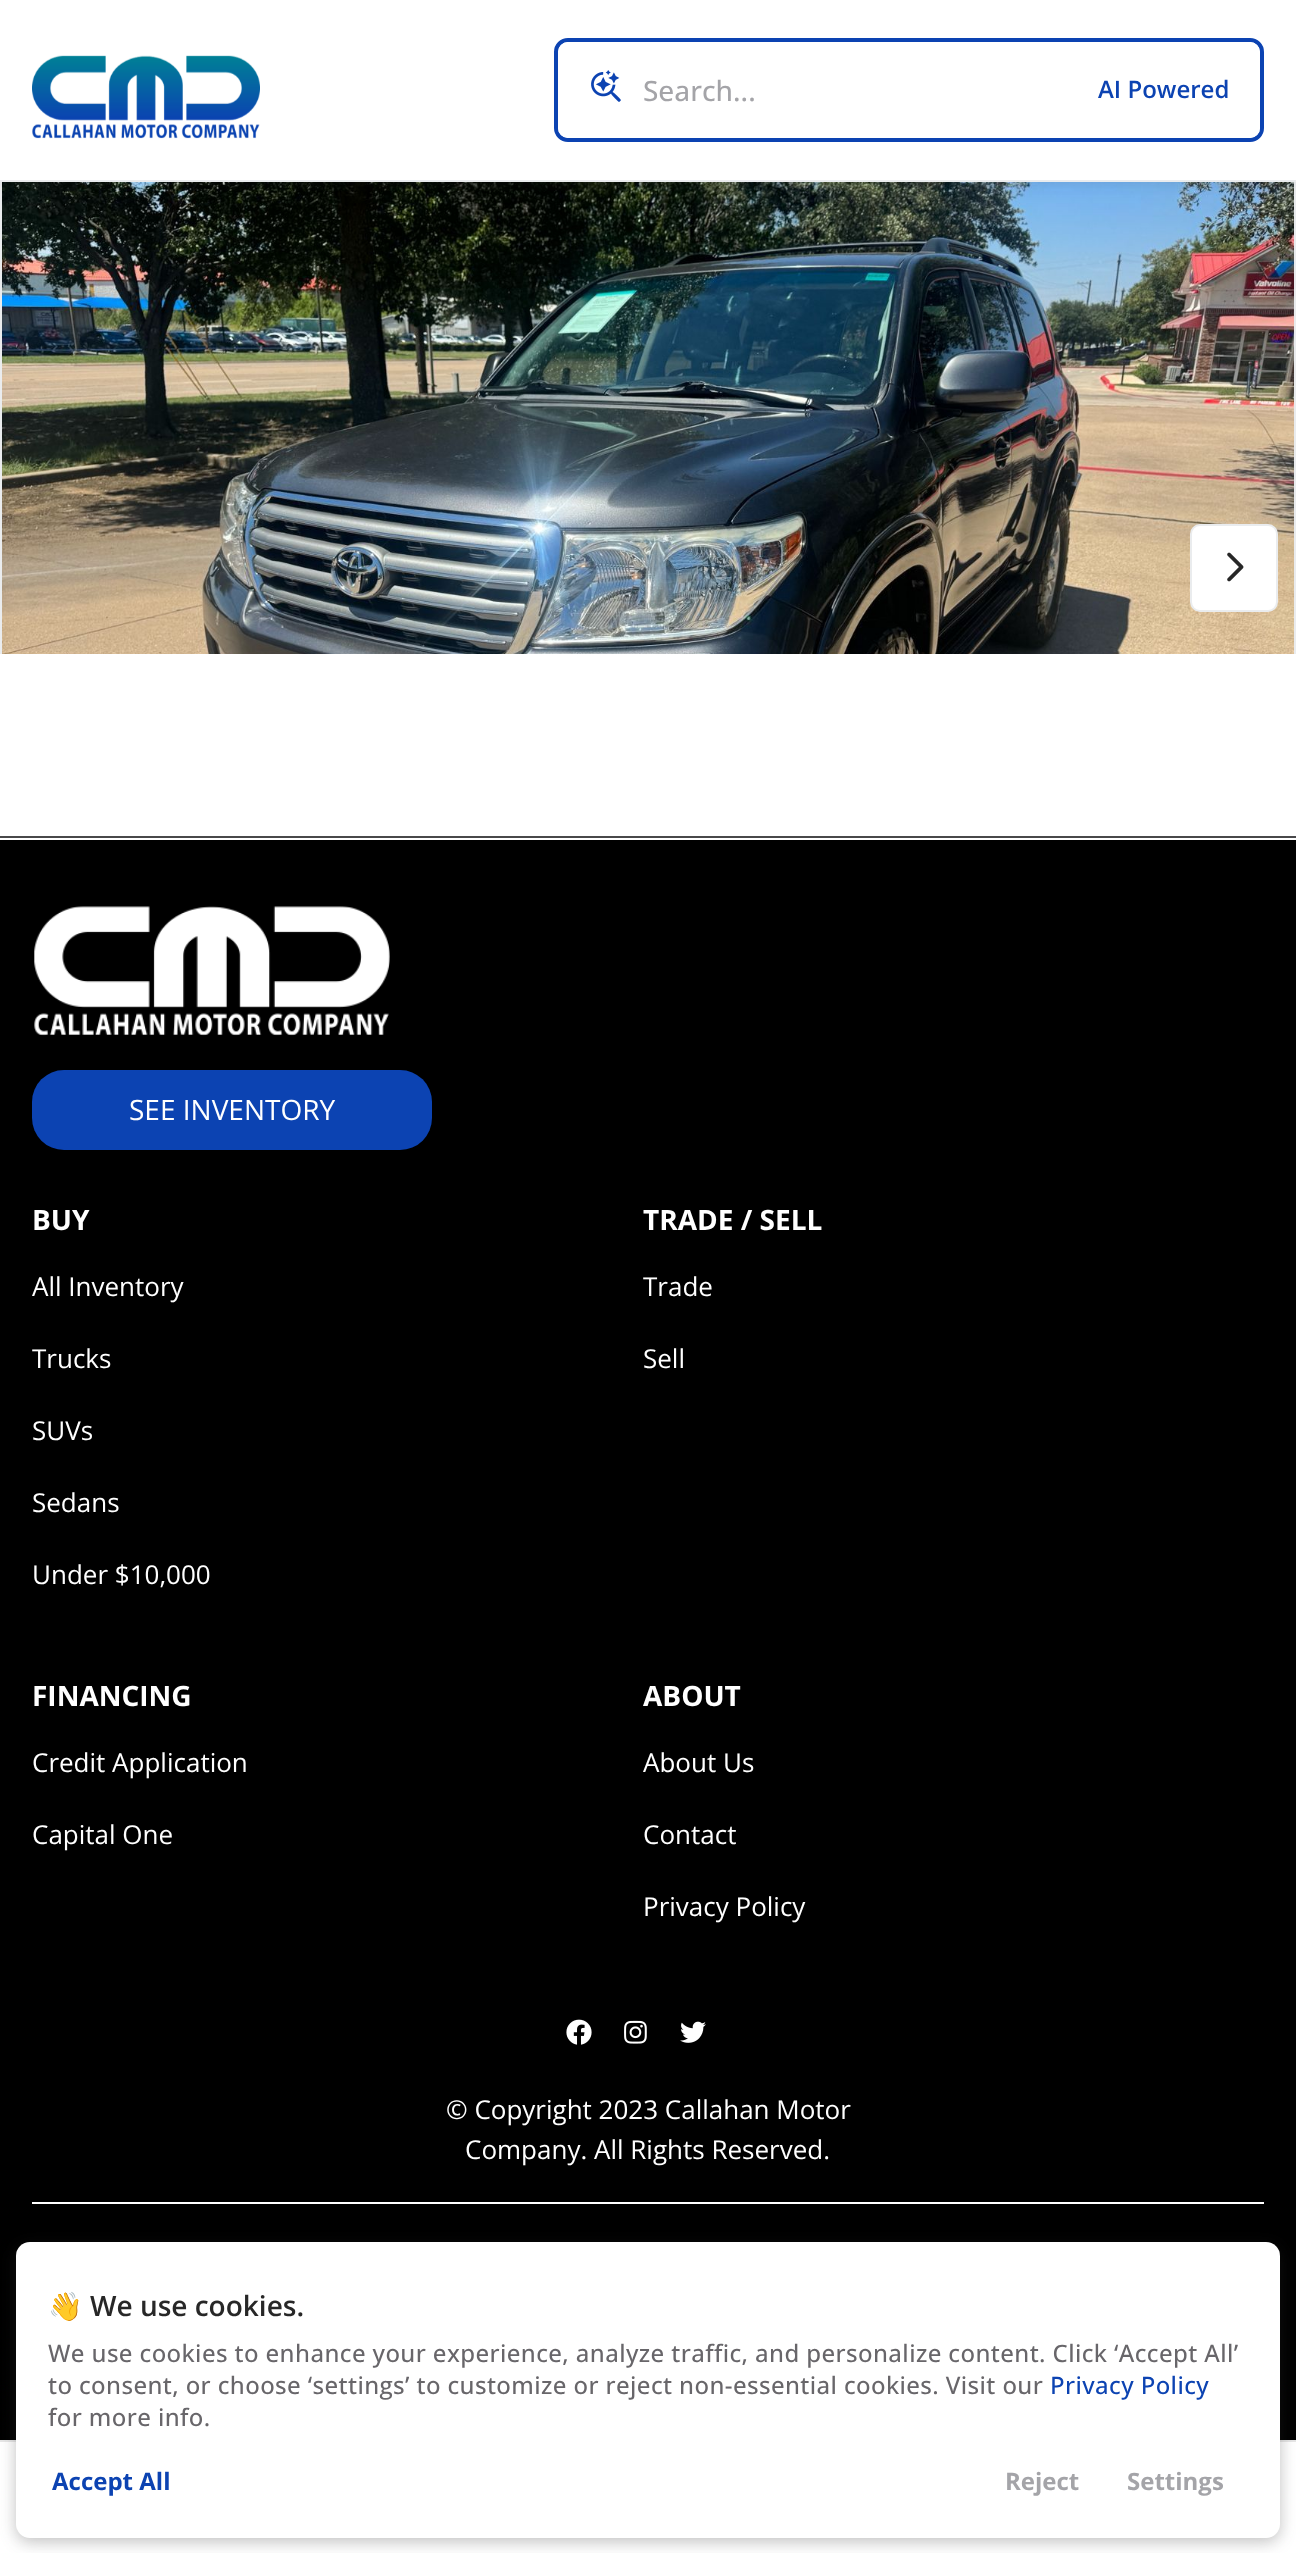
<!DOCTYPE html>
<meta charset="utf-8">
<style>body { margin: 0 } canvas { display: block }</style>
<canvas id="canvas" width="1296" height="2553"></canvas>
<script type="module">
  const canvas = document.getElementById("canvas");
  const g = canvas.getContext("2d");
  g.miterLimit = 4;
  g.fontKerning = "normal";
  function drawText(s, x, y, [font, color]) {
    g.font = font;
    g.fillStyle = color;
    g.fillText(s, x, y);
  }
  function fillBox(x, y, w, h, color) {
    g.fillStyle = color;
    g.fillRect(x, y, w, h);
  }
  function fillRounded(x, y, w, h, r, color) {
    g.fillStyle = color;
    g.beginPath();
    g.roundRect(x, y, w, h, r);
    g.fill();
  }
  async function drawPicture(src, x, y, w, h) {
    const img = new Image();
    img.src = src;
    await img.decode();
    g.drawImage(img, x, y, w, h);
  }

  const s1 = ["500 28px Open Sans", "#A4A4A8"];
  const s2 = ["600 24px Open Sans", "#0C43B2"];
  const s3 = ["bold 28px Noto Color Emoji", "#272727"];
  const s4 = ["600 28px Open Sans", "#272727"];
  const s5 = ["500 24px Open Sans", "#68666A"];
  const s6 = ["500 24px Open Sans", "#0C43B2"];
  const s7 = ["bold 24px Open Sans", "#0C43B2"];
  const s8 = ["bold 24px Open Sans", "#A4A4A8"];
  const s9 = ["28px Open Sans", "#FFFFFF"];
  const s10 = ["bold 28px Open Sans", "#FFFFFF"];
  const s11 = ["26px Open Sans", "#FFFFFF"];

  fillBox(0, 0, 1296, 2553, "#FFFFFF");
  fillBox(0, 836, 1296, 2, "#48484A");
  fillBox(0, 840, 1296, 1600, "#000000");
  await drawPicture("pic5.png", 34, 906, 356, 130);
  fillRounded(32, 1070, 400, 80, 32, "#0C43B2");
  g.save();
  g.beginPath();
  g.rect(0, 0, 1296, 654);
  g.clip();
  g.beginPath();
  g.roundRect(1, 81, 1294, 1668, 31);
  g.strokeStyle = "#EAECEE";
  g.lineWidth = 2;
  g.stroke();
  g.restore();
  await drawPicture("pic3.png", 2, 182, 1292, 472);
  g.fillStyle = "rgba(51, 51, 51, 0.25)";
  g.filter = "blur(8px)";
  g.beginPath();
  g.rect(0, -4, 1296, 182);
  g.fill();
  g.filter = "none";
  fillBox(0, 0, 1296, 180, "#FFFFFF");
  fillBox(0, 180, 1296, 2, "#EAECEE");
  await drawPicture("pic1.png", 32, 55, 228, 84);
  g.beginPath();
  g.roundRect(556, 40, 706, 100, 12);
  g.strokeStyle = "#0C43B2";
  g.lineWidth = 4;
  g.stroke();
  fillRounded(558, 42, 702, 96, 10, "#FFFFFF");
  await drawPicture("pic2.png", 591, 70, 30, 32);
  drawText("Search...", 643, 101, s1);
  drawText("AI Powered", 1098, 98, s2);
  fillBox(0, 2440, 1296, 2, "#E6E6E6");
  g.fillStyle = "rgba(51, 51, 51, 0.3)";
  g.filter = "blur(8px)";
  g.beginPath();
  g.roundRect(16, 2246, 1264, 296, 14);
  g.fill();
  g.filter = "none";
  fillRounded(16, 2242, 1264, 296, 14, "#FFFFFF");
  drawText("👋", 48, 2316, s3);
  drawText("We use cookies.", 90, 2316, s4);
  g.letterSpacing = "0.4px";
  drawText("We use cookies to enhance your experience, analyze traffic, and personalize content. Click ‘Accept All’", 48, 2362, s5);
  drawText("to consent, or choose ‘settings’ to customize or reject non-essential cookies. Visit our", 48, 2394, s5);
  drawText("Privacy Policy", 1050, 2394, s6);
  drawText("for more info.", 48, 2426, s5);
  g.letterSpacing = "0px";
  drawText("Accept All", 52, 2490, s7);
  drawText("Reject", 1005, 2490, s8);
  drawText("Settings", 1127, 2490, s8);
  g.fillStyle = "#FFFFFF";
  g.beginPath();
  g.roundRect(1191, 525, 86, 86, 9);
  g.fill();
  g.strokeStyle = "#EAECEE";
  g.lineWidth = 2;
  g.stroke();
  await drawPicture("pic4.png", 1227, 552, 17, 30);
  drawText("SEE INVENTORY", 129, 1120, s9);
  drawText("BUY", 32, 1230, s10);
  drawText("All Inventory", 32, 1296, s11);
  drawText("Trucks", 32, 1368, s11);
  drawText("SUVs", 32, 1440, s11);
  drawText("Sedans", 32, 1512, s11);
  drawText("Under $10,000", 32, 1584, s11);
  drawText("TRADE / SELL", 643, 1230, s10);
  drawText("Trade", 643, 1296, s11);
  drawText("Sell", 643, 1368, s11);
  drawText("FINANCING", 32, 1706, s10);
  drawText("Credit Application", 32, 1772, s11);
  drawText("Capital One", 32, 1844, s11);
  drawText("ABOUT", 643, 1706, s10);
  drawText("About Us", 643, 1772, s11);
  drawText("Contact", 643, 1844, s11);
  drawText("Privacy Policy", 643, 1916, s11);
  await drawPicture("pic6.png", 566, 2019, 26, 26);
  await drawPicture("pic7.png", 624, 2020, 23, 24);
  await drawPicture("pic8.png", 680, 2021, 26, 22);
  drawText("© Copyright 2023 Callahan Motor", 446, 2119, s11);
  drawText("Company. All Rights Reserved.", 465, 2159, s11);
  fillBox(32, 2202, 1232, 2, "#FFFFFF");
</script>
